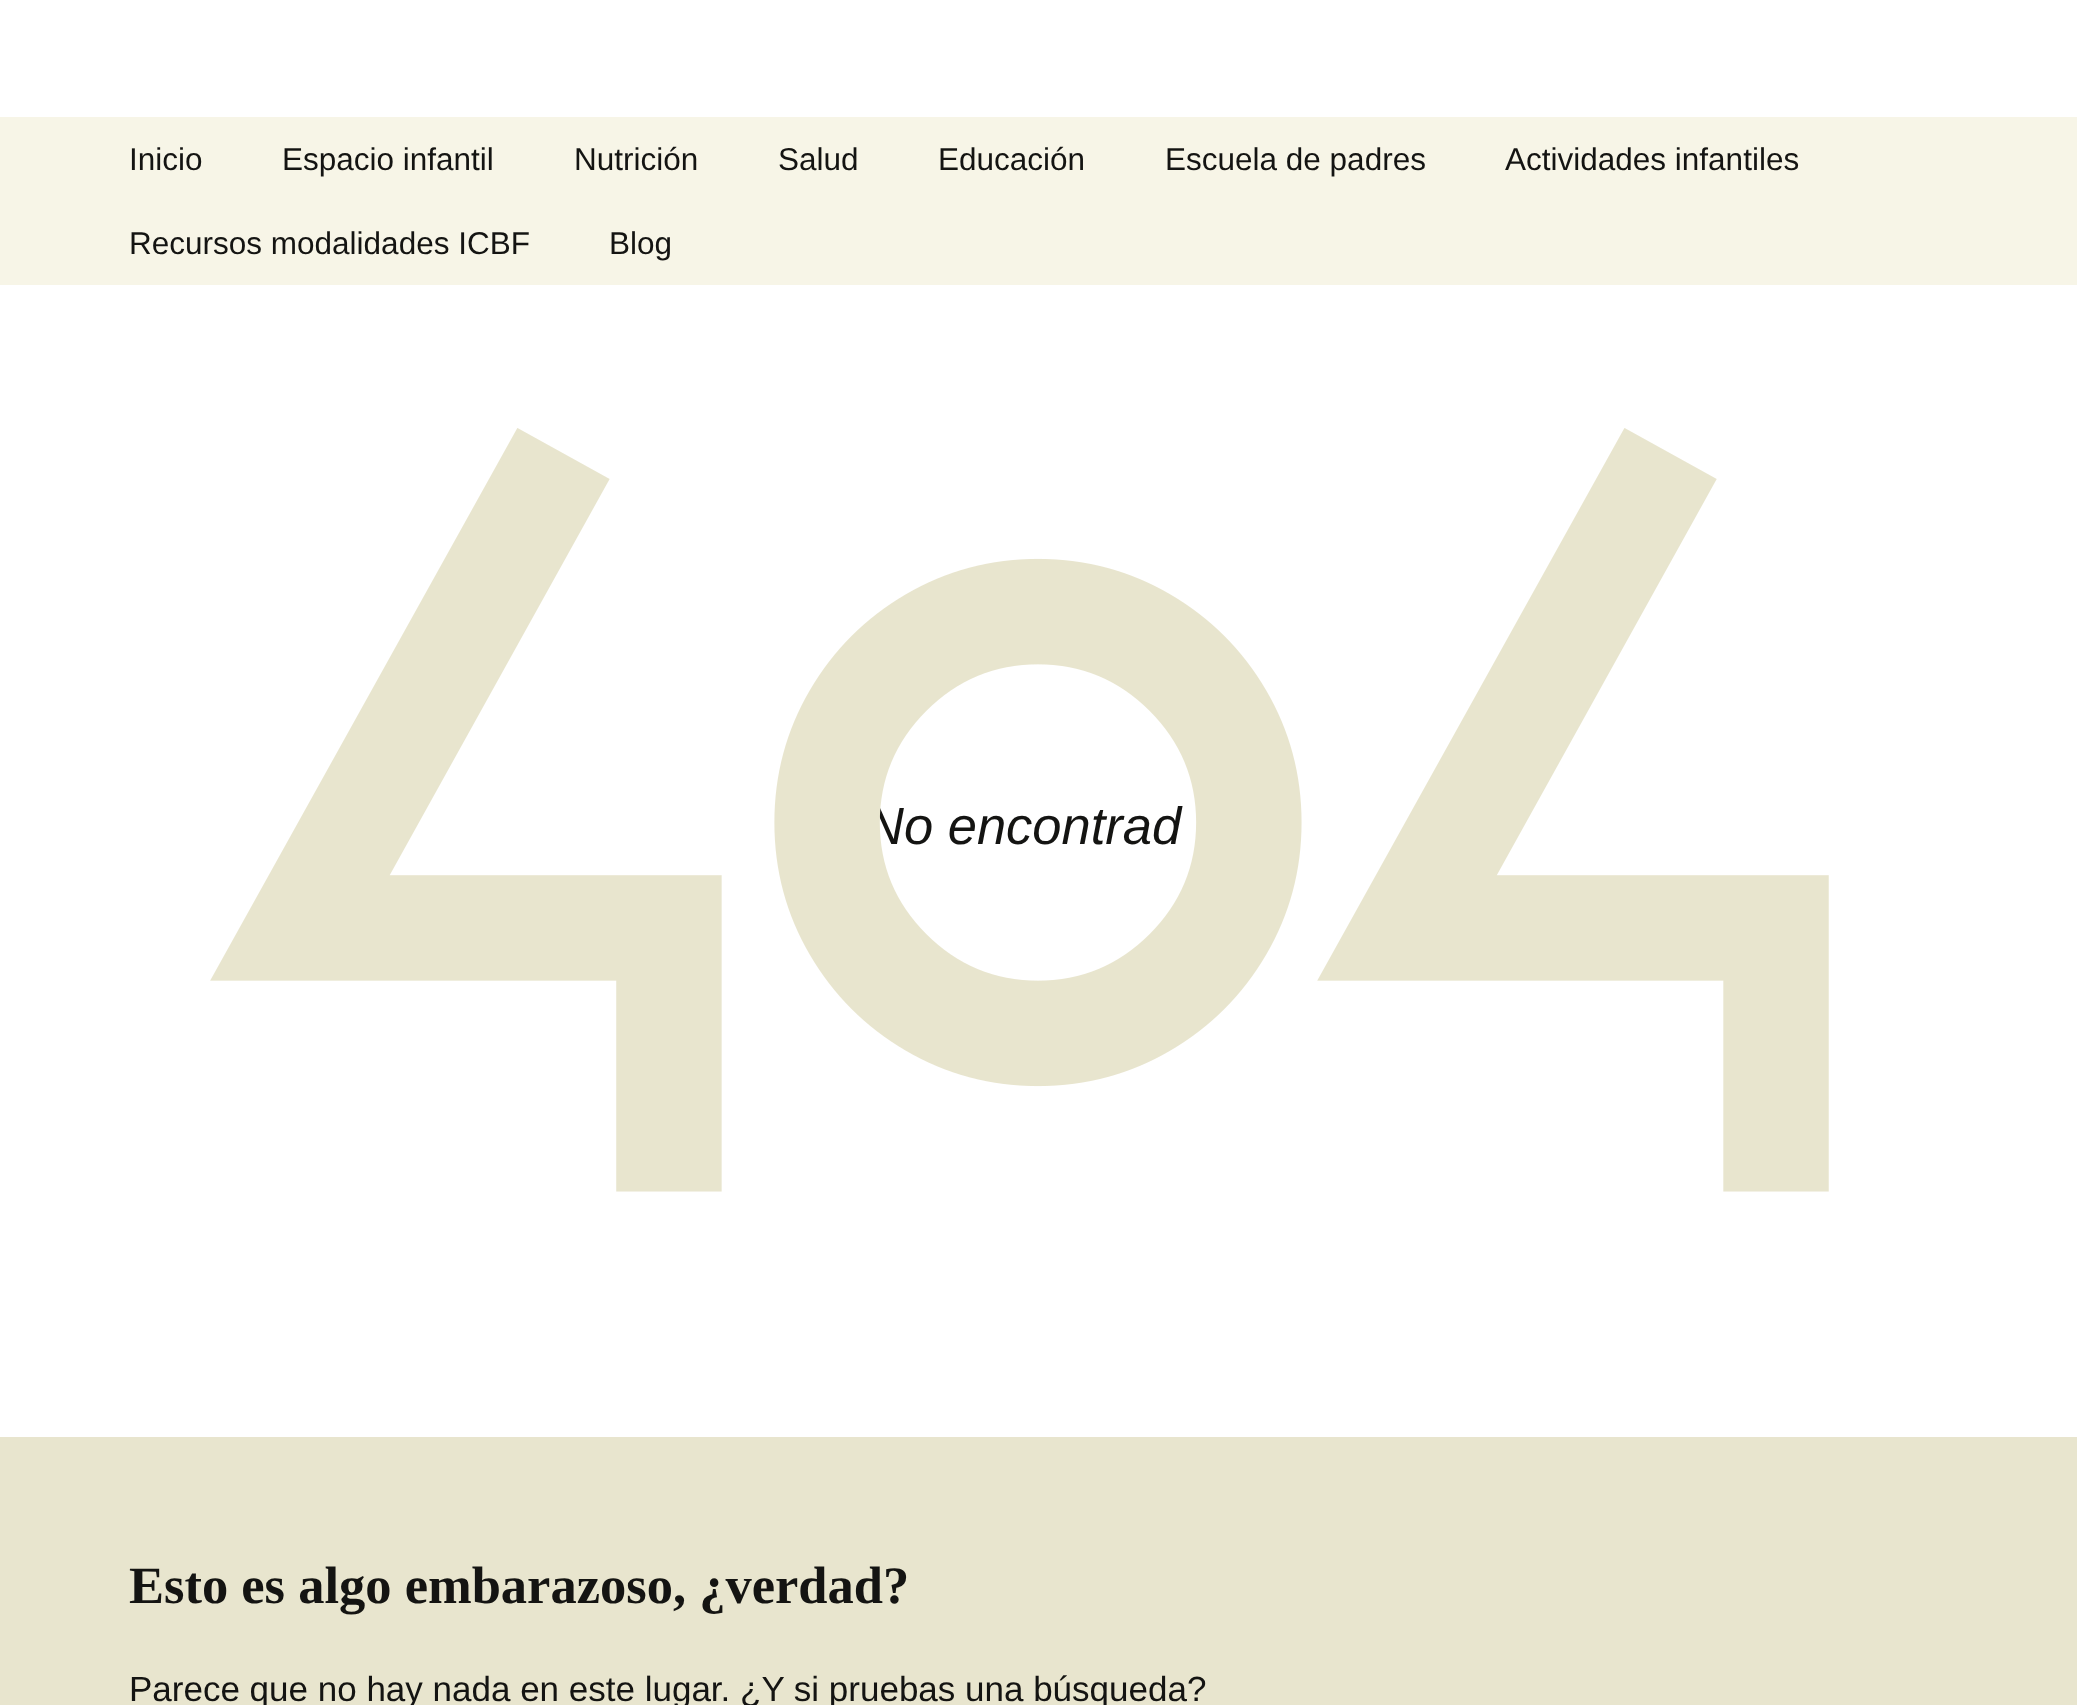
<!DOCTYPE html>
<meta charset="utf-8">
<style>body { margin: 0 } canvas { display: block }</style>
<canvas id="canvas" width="2077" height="1705"></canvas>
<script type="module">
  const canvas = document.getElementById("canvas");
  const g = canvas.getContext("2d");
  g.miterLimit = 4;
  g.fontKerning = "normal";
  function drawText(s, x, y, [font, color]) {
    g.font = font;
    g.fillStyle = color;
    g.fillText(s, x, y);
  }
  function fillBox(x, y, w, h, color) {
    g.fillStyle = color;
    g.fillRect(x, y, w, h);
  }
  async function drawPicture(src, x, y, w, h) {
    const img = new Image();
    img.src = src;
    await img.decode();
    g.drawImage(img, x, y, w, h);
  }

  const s1 = ["31.5px Liberation Sans", "#141412"];
  const s2 = ["italic 52.5px Liberation Sans", "#141412"];
  const s3 = ["bold 52.5px Liberation Serif", "#141412"];
  const s4 = ["35px Liberation Sans", "#141412"];

  fillBox(0, 0, 2077, 1705, "#FFFFFF");
  fillBox(0, 117, 2077, 168, "#F7F5E7");
  drawText("Inicio", 129, 170, s1);
  drawText("Espacio infantil", 282, 170, s1);
  drawText("Nutrición", 574, 170, s1);
  drawText("Salud", 778, 170, s1);
  drawText("Educación", 938, 170, s1);
  drawText("Escuela de padres", 1165, 170, s1);
  drawText("Actividades infantiles", 1505, 170, s1);
  drawText("Recursos modalidades ICBF", 129, 254, s1);
  drawText("Blog", 609, 254, s1);
  drawText("No encontrad", 866, 844, s2);
  await drawPicture("pic1.png", 210, 428, 1619, 764);
  fillBox(0, 1437, 2077, 268, "#E8E5CE");
  drawText("Esto es algo embarazoso, ¿verdad?", 129, 1603, s3);
  drawText("Parece que no hay nada en este lugar. ¿Y si pruebas una búsqueda?", 129, 1701, s4);
</script>
